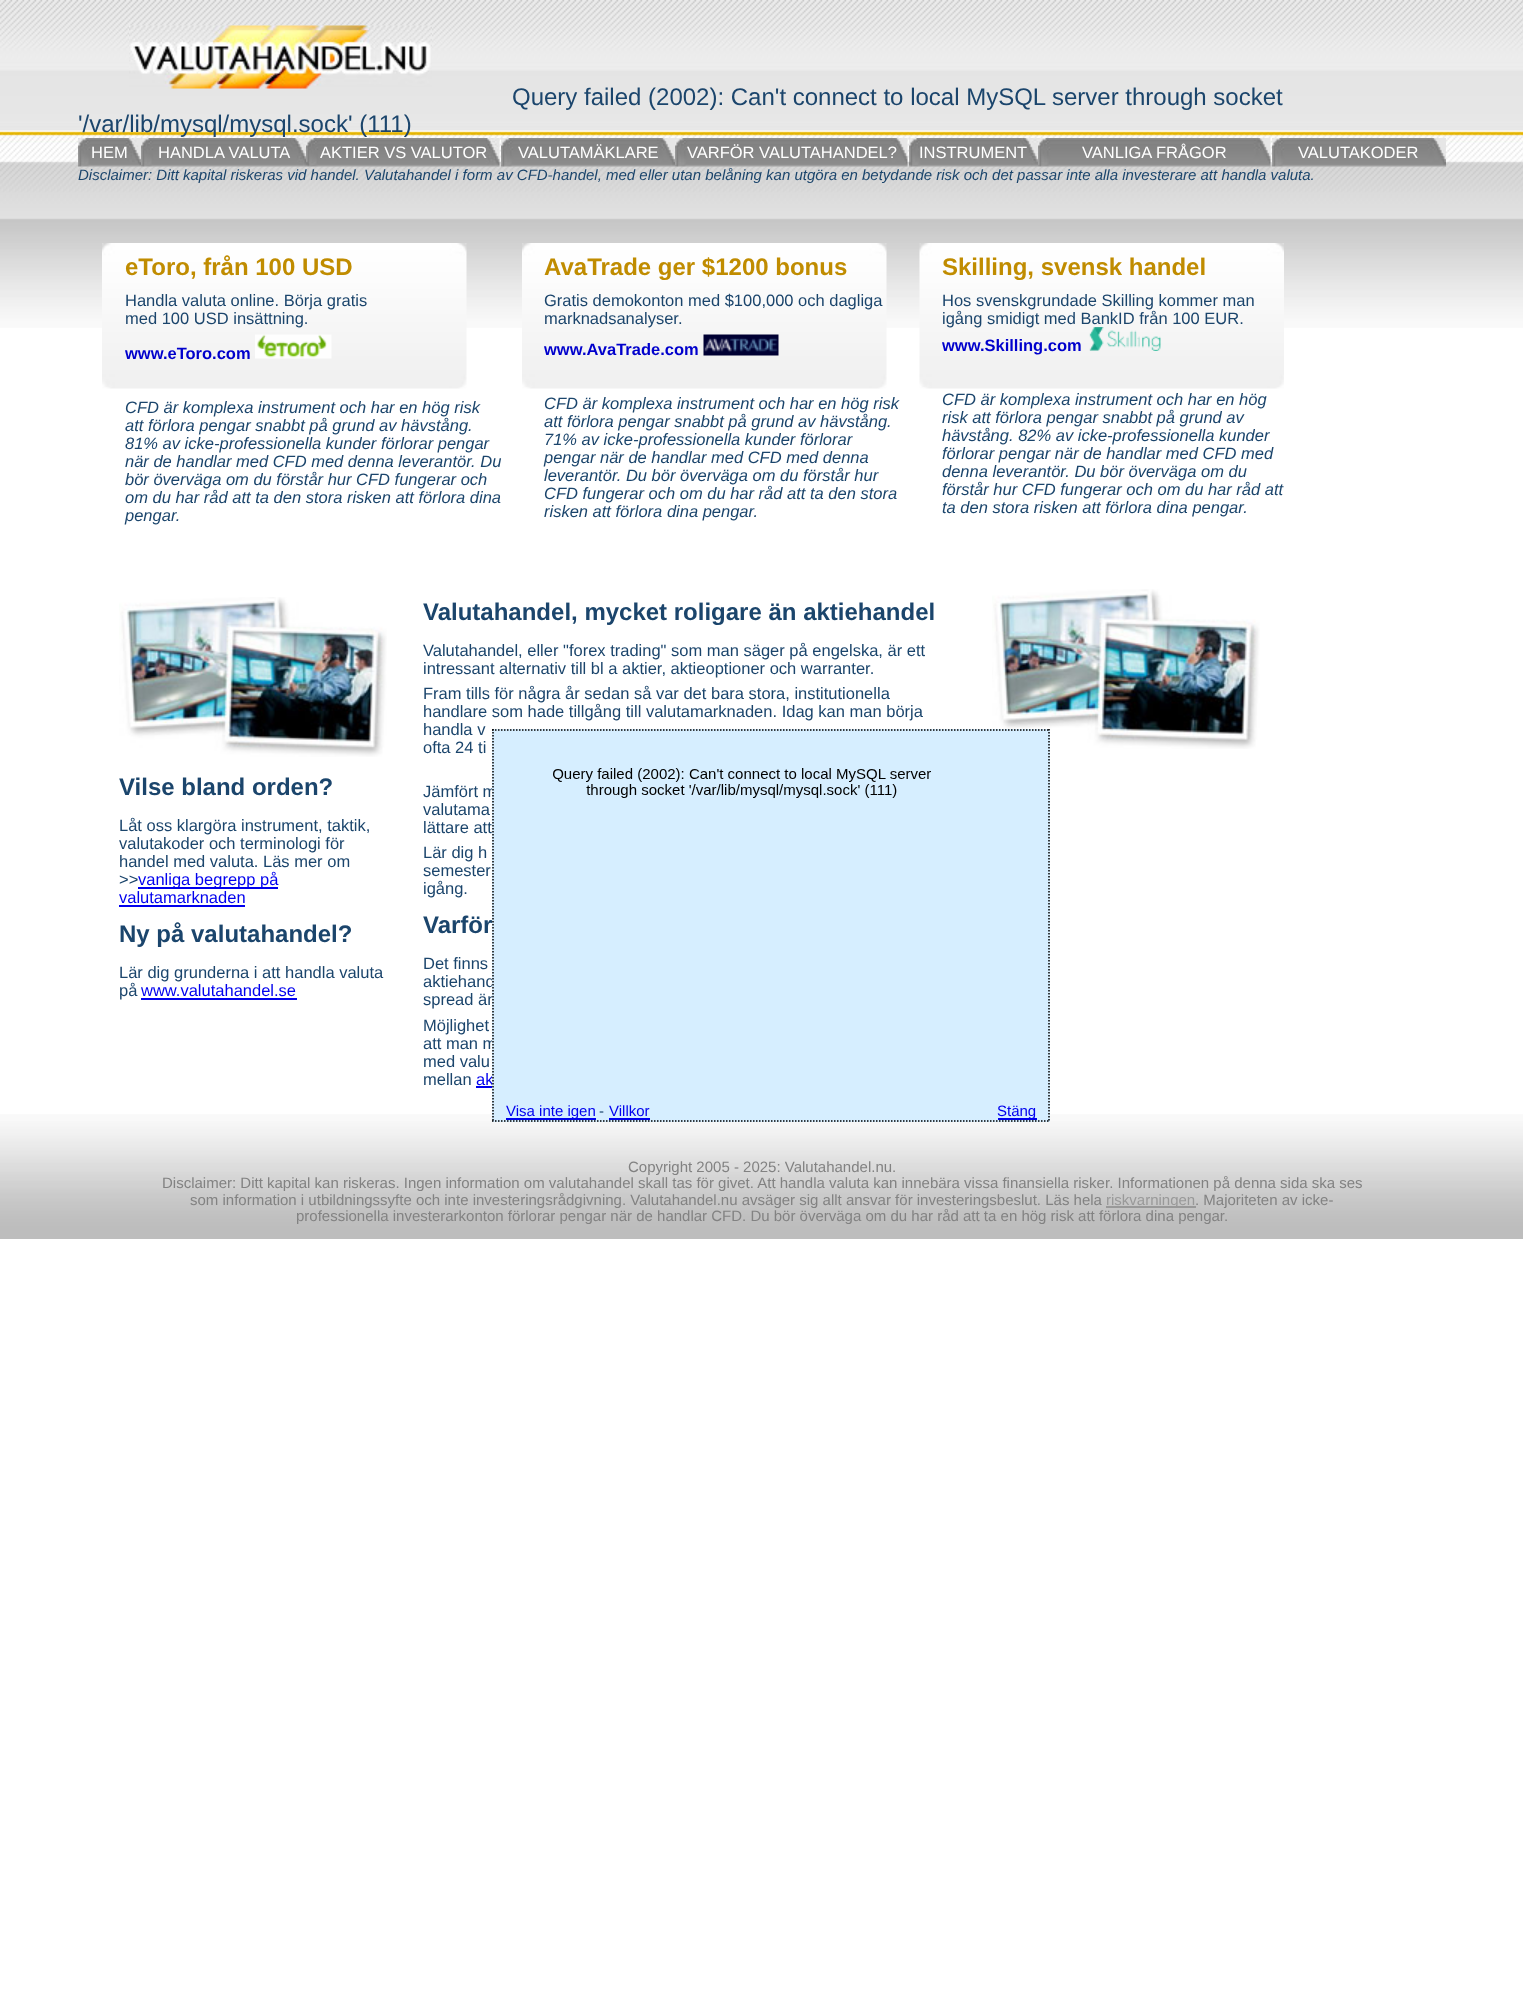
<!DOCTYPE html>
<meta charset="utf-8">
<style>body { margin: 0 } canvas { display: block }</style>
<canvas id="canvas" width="1523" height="1997"></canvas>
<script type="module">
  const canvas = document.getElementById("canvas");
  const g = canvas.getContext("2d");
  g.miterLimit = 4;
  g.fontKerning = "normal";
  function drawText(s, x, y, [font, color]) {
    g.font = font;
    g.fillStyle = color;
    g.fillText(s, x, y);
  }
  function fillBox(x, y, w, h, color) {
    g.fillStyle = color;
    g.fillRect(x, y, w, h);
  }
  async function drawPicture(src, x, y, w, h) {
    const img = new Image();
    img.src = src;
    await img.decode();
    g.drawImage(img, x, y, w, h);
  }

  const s1 = ["24px Liberation Sans", "#1B456C"];
  const s2 = ["16.5px Liberation Sans", "#FFFFFF"];
  const s3 = ["italic 15px Liberation Sans", "#1B456C"];
  const s4 = ["bold 24px Liberation Sans", "#C08C00"];
  const s5 = ["16.5px Liberation Sans", "#1B456C"];
  const s6 = ["bold 16.5px Liberation Sans", "#0000CC"];
  const s7 = ["italic 16.5px Liberation Sans", "#1B456C"];
  const s8 = ["bold 24px Liberation Sans", "#1B456C"];
  const s9 = ["16.5px Liberation Sans", "#0000EE"];
  const s10 = ["15px Liberation Sans", "#828282"];
  const s11 = ["15px Liberation Sans", "#999999"];
  const s12 = ["15px Liberation Sans", "#0000EE"];
  const s13 = ["15px Liberation Sans", "#1B456C"];

  fillBox(0, 0, 1523, 1997, "#FFFFFF");
  await drawPicture("pic1.png", 0, 0, 1523, 328);
  await drawPicture("pic2.png", 129, 25, 303, 64);
  drawText("Query failed (2002): Can't connect to local MySQL server through socket", 512, 105, s1);
  drawText("'/var/lib/mysql/mysql.sock' (111)", 78, 132, s1);
  await drawPicture("pic3.png", 78, 138, 63, 29);
  drawText("HEM", 91, 158, s2);
  await drawPicture("pic4.png", 141, 138, 165, 29);
  drawText("HANDLA VALUTA", 158, 158, s2);
  await drawPicture("pic5.png", 306, 138, 194, 29);
  drawText("AKTIER VS VALUTOR", 320, 158, s2);
  await drawPicture("pic6.png", 501, 138, 174, 29);
  drawText("VALUTAMÄKLARE", 518, 158, s2);
  await drawPicture("pic7.png", 675, 138, 233, 29);
  drawText("VARFÖR VALUTAHANDEL?", 687, 158, s2);
  await drawPicture("pic8.png", 909, 138, 129, 29);
  drawText("INSTRUMENT", 919, 158, s2);
  await drawPicture("pic9.png", 1038, 138, 233, 29);
  drawText("VANLIGA FRÅGOR", 1082, 158, s2);
  await drawPicture("pic10.png", 1272, 138, 174, 29);
  drawText("VALUTAKODER", 1298, 158, s2);
  drawText("Disclaimer: Ditt kapital riskeras vid handel. Valutahandel i form av CFD-handel, med eller utan belåning kan utgöra en betydande risk och det passar inte alla investerare att handla valuta.", 78, 180, s3);
  await drawPicture("pic11.png", 102, 243, 365, 146);
  drawText("eToro, från 100 USD", 125, 275, s4);
  drawText("Handla valuta online. Börja gratis", 125, 306, s5);
  drawText("med 100 USD insättning.", 125, 324, s5);
  drawText("www.eToro.com", 125, 359, s6);
  await drawPicture("pic12.png", 255, 334, 77, 25);
  drawText("CFD är komplexa instrument och har en hög risk", 125, 413, s7);
  drawText("att förlora pengar snabbt på grund av hävstång.", 125, 431, s7);
  drawText("81% av icke-professionella kunder förlorar pengar", 125, 449, s7);
  drawText("när de handlar med CFD med denna leverantör. Du", 125, 467, s7);
  drawText("bör överväga om du förstår hur CFD fungerar och", 125, 485, s7);
  drawText("om du har råd att ta den stora risken att förlora dina", 125, 503, s7);
  drawText("pengar.", 125, 521, s7);
  await drawPicture("pic13.png", 522, 243, 365, 146);
  drawText("AvaTrade ger $1200 bonus", 544, 275, s4);
  drawText("Gratis demokonton med $100,000 och dagliga", 544, 306, s5);
  drawText("marknadsanalyser.", 544, 324, s5);
  drawText("www.AvaTrade.com", 544, 355, s6);
  await drawPicture("pic14.png", 703, 334, 76, 22);
  drawText("CFD är komplexa instrument och har en hög risk", 544, 409, s7);
  drawText("att förlora pengar snabbt på grund av hävstång.", 544, 427, s7);
  drawText("71% av icke-professionella kunder förlorar", 544, 445, s7);
  drawText("pengar när de handlar med CFD med denna", 544, 463, s7);
  drawText("leverantör. Du bör överväga om du förstår hur", 544, 481, s7);
  drawText("CFD fungerar och om du har råd att ta den stora", 544, 499, s7);
  drawText("risken att förlora dina pengar.", 544, 517, s7);
  await drawPicture("pic15.png", 919, 243, 365, 146);
  drawText("Skilling, svensk handel", 942, 275, s4);
  drawText("Hos svenskgrundade Skilling kommer man", 942, 306, s5);
  drawText("igång smidigt med BankID från 100 EUR.", 942, 324, s5);
  drawText("www.Skilling.com", 942, 351, s6);
  await drawPicture("pic16.png", 1089, 327, 72, 24);
  drawText("CFD är komplexa instrument och har en hög", 942, 405, s7);
  drawText("risk att förlora pengar snabbt på grund av", 942, 423, s7);
  drawText("hävstång. 82% av icke-professionella kunder", 942, 441, s7);
  drawText("förlorar pengar när de handlar med CFD med", 942, 459, s7);
  drawText("denna leverantör. Du bör överväga om du", 942, 477, s7);
  drawText("förstår hur CFD fungerar och om du har råd att", 942, 495, s7);
  drawText("ta den stora risken att förlora dina pengar.", 942, 513, s7);
  await drawPicture("pic17.png", 119, 597, 268, 160);
  drawText("Vilse bland orden?", 119, 795, s8);
  drawText("Låt oss klargöra instrument, taktik,", 119, 831, s5);
  drawText("valutakoder och terminologi för", 119, 849, s5);
  drawText("handel med valuta. Läs mer om", 119, 867, s5);
  drawText(">>", 119, 885, s5);
  fillBox(138, 887, 140, 2, "#0000EE");
  drawText("vanliga begrepp på", 138, 885, s9);
  drawText("valutamarknaden", 119, 903, s9);
  fillBox(119, 905, 126, 2, "#0000EE");
  drawText("Ny på valutahandel?", 119, 942, s8);
  drawText("Lär dig grunderna i att handla valuta", 119, 978, s5);
  drawText("på", 119, 996, s5);
  drawText("www.valutahandel.se", 141, 996, s9);
  fillBox(141, 998, 156, 2, "#0000EE");
  drawText("Valutahandel, mycket roligare än aktiehandel", 423, 620, s8);
  drawText("Valutahandel, eller \"forex trading\" som man säger på engelska, är ett", 423, 656, s5);
  drawText("intressant alternativ till bl a aktier, aktieoptioner och warranter.", 423, 674, s5);
  drawText("Fram tills för några år sedan så var det bara stora, institutionella", 423, 699, s5);
  drawText("handlare som hade tillgång till valutamarknaden. Idag kan man börja", 423, 717, s5);
  drawText("handla v", 423, 735, s5);
  drawText("ofta 24 ti", 423, 753, s5);
  drawText("Jämfört m", 423, 797, s5);
  drawText("valutama", 423, 815, s5);
  drawText("lättare att", 423, 833, s5);
  drawText("Lär dig h", 423, 858, s5);
  drawText("semester", 423, 876, s5);
  drawText("igång.", 423, 894, s5);
  drawText("Varför", 423, 933, s8);
  drawText("Det finns", 423, 969, s5);
  drawText("aktiehand", 423, 987, s5);
  drawText("spread än", 423, 1005, s5);
  drawText("Möjlighet", 423, 1031, s5);
  drawText("att man m", 423, 1049, s5);
  drawText("med valu", 423, 1067, s5);
  drawText("mellan", 423, 1085, s5);
  drawText("ak", 476, 1085, s9);
  fillBox(476, 1086, 16, 2, "#0000EE");
  await drawPicture("pic18.png", 992, 589, 268, 160);
  await drawPicture("pic19.png", 0, 1114, 1523, 125);
  drawText("Copyright 2005 - 2025: Valutahandel.nu.", 628, 1172, s10);
  drawText("Disclaimer: Ditt kapital kan riskeras. Ingen information om valutahandel skall tas för givet. Att handla valuta kan innebära vissa finansiella risker. Informationen på denna sida ska ses", 162, 1188, s10);
  drawText("som information i utbildningssyfte och inte investeringsrådgivning. Valutahandel.nu avsäger sig allt ansvar för investeringsbeslut. Läs hela", 190, 1205, s10);
  fillBox(1106, 1206, 90, 2, "#999999");
  drawText("riskvarningen", 1106, 1205, s11);
  drawText(". Majoriteten av icke-", 1195, 1205, s10);
  drawText("professionella investerarkonton förlorar pengar när de handlar CFD. Du bör överväga om du har råd att ta en hög risk att förlora dina pengar.", 296, 1221, s10);
  fillBox(492, 729, 558, 393, "#D6EEFF");
  g.beginPath();
  g.moveTo(492, 730);
  g.lineTo(1050, 730);
  g.strokeStyle = "#000000";
  g.lineWidth = 1.5;
  g.setLineDash([1.5, 1.5]);
  g.stroke();
  g.beginPath();
  g.moveTo(1049, 729);
  g.lineTo(1049, 1122);
  g.stroke();
  g.beginPath();
  g.moveTo(492, 1121);
  g.lineTo(1050, 1121);
  g.stroke();
  g.beginPath();
  g.moveTo(493, 729);
  g.lineTo(493, 1122);
  g.stroke();
  await drawPicture("pic20.png", 553, 768, 378, 30);
  fillBox(506, 1118, 90, 2, "#0000EE");
  drawText("Visa inte igen", 506, 1116, s12);
  drawText("-", 599, 1116, s13);
  drawText("Villkor", 609, 1116, s12);
  fillBox(609, 1118, 41, 2, "#0000EE");
  fillBox(998, 1118, 39, 2, "#0000EE");
  drawText("Stäng", 997, 1116, s12);
</script>
